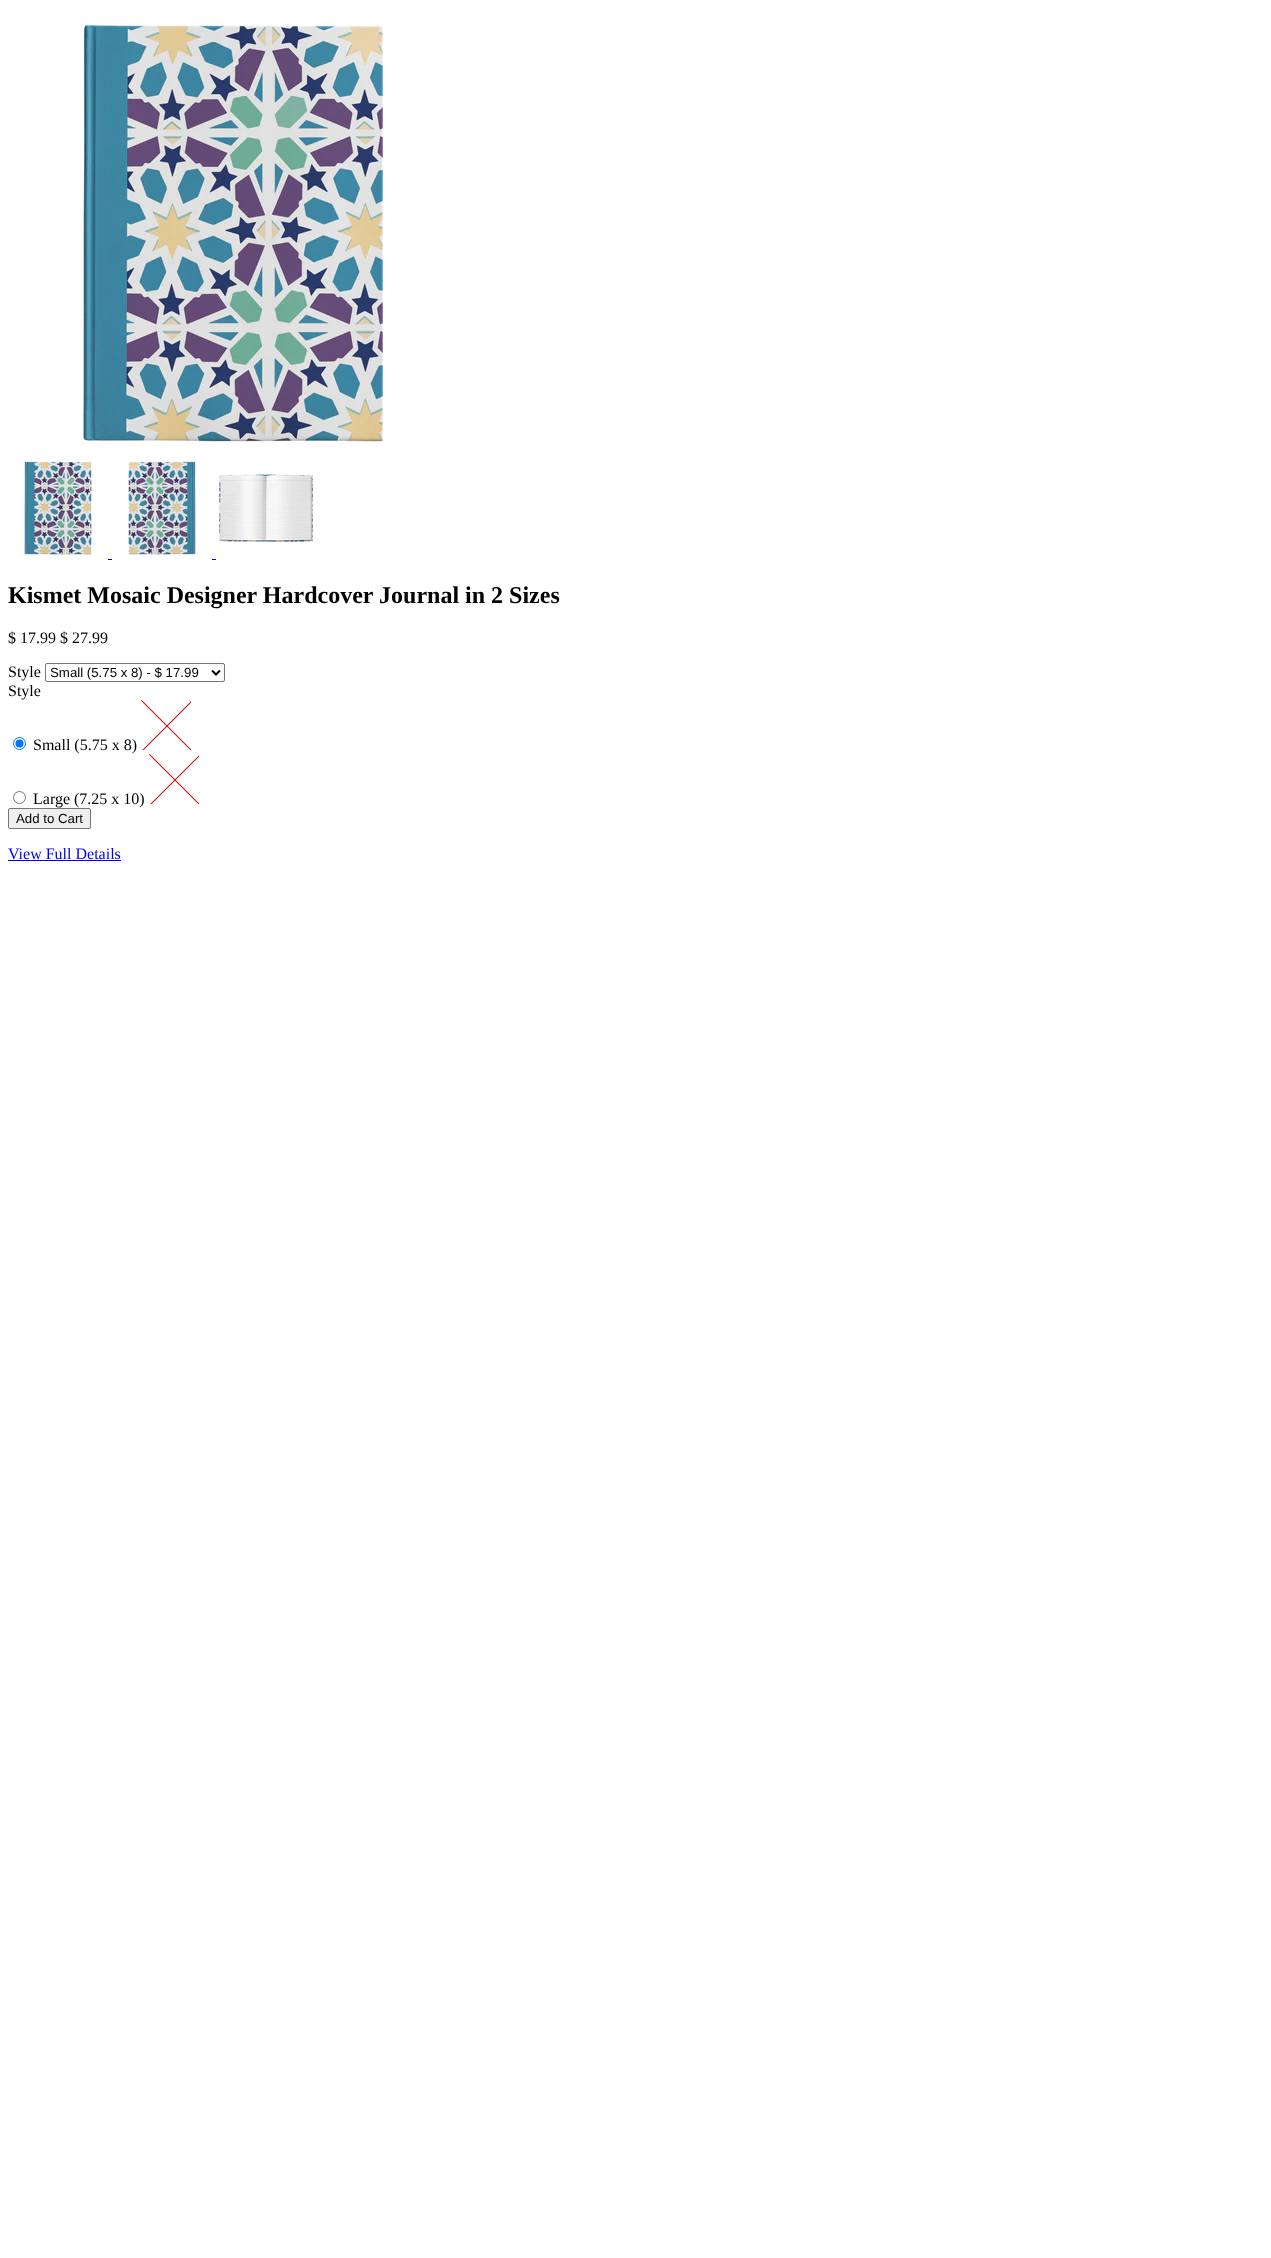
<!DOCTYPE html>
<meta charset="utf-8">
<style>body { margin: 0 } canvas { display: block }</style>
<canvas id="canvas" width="1271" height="2258"></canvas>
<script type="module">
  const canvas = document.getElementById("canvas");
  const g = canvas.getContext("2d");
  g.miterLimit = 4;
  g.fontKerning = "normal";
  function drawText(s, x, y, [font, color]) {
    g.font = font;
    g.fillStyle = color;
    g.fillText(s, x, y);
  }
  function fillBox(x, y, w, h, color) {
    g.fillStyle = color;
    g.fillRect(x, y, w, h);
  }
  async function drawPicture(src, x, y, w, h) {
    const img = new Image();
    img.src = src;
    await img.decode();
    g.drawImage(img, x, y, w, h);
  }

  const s1 = ["bold 24px Liberation Serif", "#000000"];
  const s2 = ["16px Liberation Serif", "#000000"];
  const s3 = ["13.25px Liberation Sans", "#000000"];
  const s4 = ["16px Liberation Serif", "#0000EE"];

  fillBox(0, 0, 1271, 2258, "#FFFFFF");
  await drawPicture("pic1.png", 83, 25, 300, 417);
  await drawPicture("pic2.png", 24, 461, 68, 94);
  await drawPicture("pic3.png", 128, 461, 68, 94);
  await drawPicture("pic4.png", 219, 474, 95, 68);
  fillBox(108, 559, 4, 1, "#0000EE");
  fillBox(212, 559, 4, 1, "#0000EE");
  drawText("Kismet Mosaic Designer Hardcover Journal in 2 Sizes", 8, 603, s1);
  drawText("$ 17.99 $ 27.99", 8, 643, s2);
  drawText("Style", 8, 677, s2);
  g.beginPath();
  g.roundRect(45.5, 663.5, 179, 18, 1.5);
  g.strokeStyle = "#767676";
  g.stroke();
  g.beginPath();
  g.moveTo(212, 670.5);
  g.lineTo(216, 674.5);
  g.lineTo(220, 670.5);
  g.strokeStyle = "#000000";
  g.lineWidth = 2;
  g.stroke();
  drawText("Small (5.75 x 8) - $ 17.99", 50, 677, s3);
  drawText("Style", 8, 696, s2);
  g.beginPath();
  g.arc(19.5, 743.5, 6, 0, Math.PI * 2);
  g.strokeStyle = "#0075FF";
  g.lineWidth = 1;
  g.stroke();
  g.fillStyle = "#0075FF";
  g.beginPath();
  g.arc(19.5, 743.5, 4, 0, Math.PI * 2);
  g.fill();
  drawText("Small (5.75 x 8)", 33, 750, s2);
  await drawPicture("pic5.png", 141, 700, 50, 50);
  g.beginPath();
  g.arc(19.5, 797.5, 6, 0, Math.PI * 2);
  g.strokeStyle = "#767676";
  g.stroke();
  drawText("Large (7.25 x 10)", 33, 804, s2);
  await drawPicture("pic5.png", 149, 754, 50, 50);
  g.fillStyle = "#EFEFEF";
  g.beginPath();
  g.roundRect(8.5, 808.5, 82, 20, 1.5);
  g.fill();
  g.stroke();
  drawText("Add to Cart", 16, 823, s3);
  drawText("View Full Details", 8, 859, s4);
  fillBox(8, 860, 113, 1, "#0000EE");
</script>
